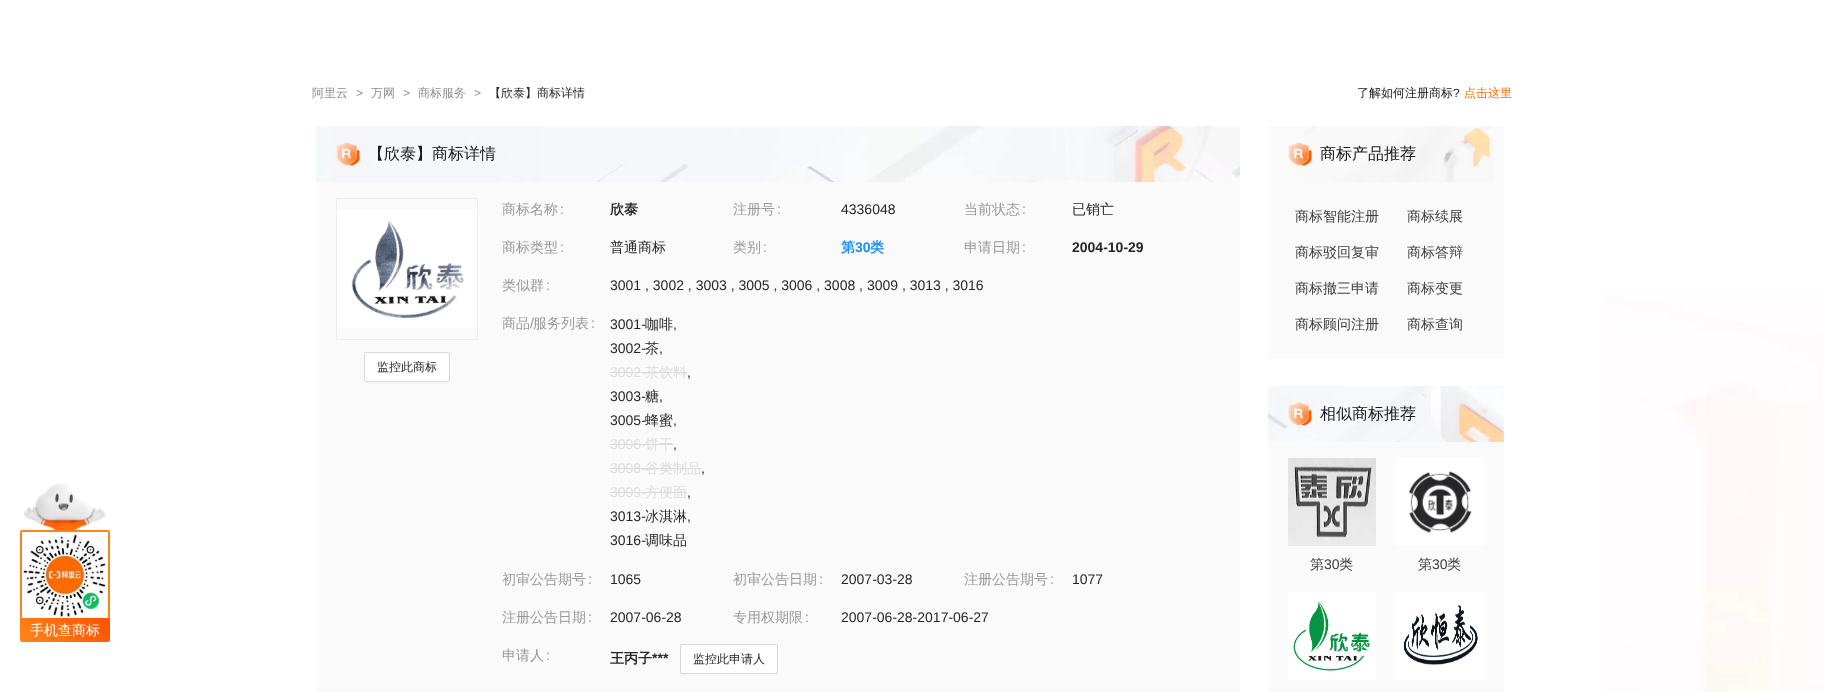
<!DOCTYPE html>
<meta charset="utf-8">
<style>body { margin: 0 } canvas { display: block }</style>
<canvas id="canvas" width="1823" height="692"></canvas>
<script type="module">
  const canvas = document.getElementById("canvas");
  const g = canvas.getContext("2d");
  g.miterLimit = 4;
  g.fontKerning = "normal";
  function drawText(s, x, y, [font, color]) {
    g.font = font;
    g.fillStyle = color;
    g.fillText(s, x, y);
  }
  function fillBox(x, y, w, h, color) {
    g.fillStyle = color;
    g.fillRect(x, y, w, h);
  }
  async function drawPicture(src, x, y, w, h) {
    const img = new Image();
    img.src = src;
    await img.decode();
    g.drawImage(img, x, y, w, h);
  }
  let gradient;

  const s1 = ["500 14px WenQuanYi Zen Hei", "#FFFFFF"];
  const s2 = ["500 12px WenQuanYi Zen Hei", "#8C8C8C"];
  const s3 = ["12px Liberation Sans", "#8C8C8C"];
  const s4 = ["500 12px WenQuanYi Zen Hei", "#262626"];
  const s5 = ["500 12px WenQuanYi Zen Hei", "#181818"];
  const s6 = ["12px Liberation Sans", "#181818"];
  const s7 = ["500 12px WenQuanYi Zen Hei", "#FF6A00"];
  const s8 = ["500 16px WenQuanYi Zen Hei", "#181818"];
  const s9 = ["500 14px WenQuanYi Zen Hei", "#999999"];
  const s10 = ["14px Liberation Sans", "#999999"];
  const s11 = ["bold 14px WenQuanYi Zen Hei", "#262626"];
  const s12 = ["14px Liberation Sans", "#262626"];
  const s13 = ["500 14px WenQuanYi Zen Hei", "#262626"];
  const s14 = ["bold 14px WenQuanYi Zen Hei", "#1890FF"];
  const s15 = ["bold 14px Liberation Sans", "#1890FF"];
  const s16 = ["bold 14px Liberation Sans", "#262626"];
  const s17 = ["14px Liberation Sans", "#DCDCDC"];
  const s18 = ["500 14px WenQuanYi Zen Hei", "#DCDCDC"];
  const s19 = ["500 14px WenQuanYi Zen Hei", "#3D3D3D"];
  const s20 = ["14px Liberation Sans", "#3D3D3D"];

  fillBox(0, 0, 1823, 692, "#FFFFFF");
  await drawPicture("pic1.png", 1603, 296, 220, 396);
  await drawPicture("pic2.png", 24, 483, 82, 47);
  g.beginPath();
  g.roundRect(21, 531, 88, 88, [1, 1, 0, 0]);
  g.strokeStyle = "#FF8319";
  g.lineWidth = 2;
  g.stroke();
  await drawPicture("pic3.png", 22, 532, 86, 86);
  gradient = g.createLinearGradient(37, 659, 94, 602);
  gradient.addColorStop(0, "#FF871A");
  gradient.addColorStop(1, "#FF5000");
  g.fillStyle = gradient;
  g.beginPath();
  g.roundRect(20, 618, 90, 24, 2);
  g.fill();
  drawText("手机查商标", 30, 635, s1);
  drawText("阿里云", 312, 97, s2);
  drawText(">", 356, 97, s3);
  drawText("万网", 371, 97, s2);
  drawText(">", 403, 97, s3);
  drawText("商标服务", 418, 97, s2);
  drawText(">", 474, 97, s3);
  drawText("【欣泰】商标详情", 489, 97, s4);
  drawText("了解如何注册商标", 1357, 97, s5);
  drawText("?", 1453, 97, s6);
  drawText("点击这里", 1464, 97, s7);
  fillBox(316, 182, 924, 510, "#FAFAFA");
  await drawPicture("pic4.png", 316, 126, 924, 56);
  await drawPicture("pic5.png", 336, 142, 24, 24);
  drawText("【欣泰】商标详情", 368, 159, s8);
  g.strokeStyle = "#EDEDED";
  g.lineWidth = 1;
  g.strokeRect(336.5, 198.5, 141, 141);
  await drawPicture("pic6.png", 337, 210, 140, 118);
  g.fillStyle = "#F6F6F6";
  g.beginPath();
  g.moveTo(364, 380);
  g.lineTo(364, 382);
  g.bezierCurveTo(364, 383, 365, 384, 366, 384);
  g.lineTo(448, 384);
  g.bezierCurveTo(449, 384, 450, 383, 450, 382);
  g.lineTo(450, 380);
  g.bezierCurveTo(450, 381, 449, 382, 448, 382);
  g.lineTo(366, 382);
  g.bezierCurveTo(365, 382, 364, 381, 364, 380);
  g.closePath();
  g.fill();
  g.fillStyle = "#FFFFFF";
  g.beginPath();
  g.roundRect(364.5, 352.5, 85, 29, 1.5);
  g.fill();
  g.strokeStyle = "#D9D9D9";
  g.stroke();
  drawText("监控此商标", 377, 371, s4);
  drawText("商标名称", 502, 214, s9);
  drawText(":", 560, 214, s10);
  drawText("欣泰", 610, 214, s11);
  drawText("注册号", 733, 214, s9);
  drawText(":", 777, 214, s10);
  drawText("4336048", 841, 214, s12);
  drawText("当前状态", 964, 214, s9);
  drawText(":", 1022, 214, s10);
  drawText("已销亡", 1072, 214, s13);
  drawText("商标类型", 502, 252, s9);
  drawText(":", 560, 252, s10);
  drawText("普通商标", 610, 252, s13);
  drawText("类别", 733, 252, s9);
  drawText(":", 763, 252, s10);
  drawText("第", 841, 252, s14);
  drawText("30", 855, 252, s15);
  drawText("类", 870, 252, s14);
  drawText("申请日期", 964, 252, s9);
  drawText(":", 1022, 252, s10);
  drawText("2004-10-29", 1072, 252, s16);
  drawText("类似群", 502, 290, s9);
  drawText(":", 546, 290, s10);
  drawText("3001 , 3002 , 3003 , 3005 , 3006 , 3008 , 3009 , 3013 , 3016", 610, 290, s12);
  drawText("商品", 502, 328, s9);
  drawText("/", 530, 328, s10);
  drawText("服务列表", 533, 328, s9);
  drawText(":", 591, 328, s10);
  drawText("3001-", 610, 329, s12);
  drawText("咖啡", 645, 329, s13);
  drawText(",", 673, 329, s12);
  drawText("3002-", 610, 353, s12);
  drawText("茶", 645, 353, s13);
  drawText(",", 659, 353, s12);
  drawText("3002-", 610, 377, s17);
  fillBox(610, 372, 77, 1, "#DCDCDC");
  drawText("茶饮料", 645, 377, s18);
  drawText(",", 687, 377, s12);
  drawText("3003-", 610, 401, s12);
  drawText("糖", 645, 401, s13);
  drawText(",", 659, 401, s12);
  drawText("3005-", 610, 425, s12);
  drawText("蜂蜜", 645, 425, s13);
  drawText(",", 673, 425, s12);
  drawText("3006-", 610, 449, s17);
  fillBox(610, 444, 63, 1, "#DCDCDC");
  drawText("饼干", 645, 449, s18);
  drawText(",", 673, 449, s12);
  drawText("3008-", 610, 473, s17);
  fillBox(610, 468, 91, 1, "#DCDCDC");
  drawText("谷类制品", 645, 473, s18);
  drawText(",", 701, 473, s12);
  drawText("3009-", 610, 497, s17);
  fillBox(610, 492, 77, 1, "#DCDCDC");
  drawText("方便面", 645, 497, s18);
  drawText(",", 687, 497, s12);
  drawText("3013-", 610, 521, s12);
  drawText("冰淇淋", 645, 521, s13);
  drawText(",", 687, 521, s12);
  drawText("3016-", 610, 545, s12);
  drawText("调味品", 645, 545, s13);
  drawText("初审公告期号", 502, 584, s9);
  drawText(":", 588, 584, s10);
  drawText("1065", 610, 584, s12);
  drawText("初审公告日期", 733, 584, s9);
  drawText(":", 819, 584, s10);
  drawText("2007-03-28", 841, 584, s12);
  drawText("注册公告期号", 964, 584, s9);
  drawText(":", 1050, 584, s10);
  drawText("1077", 1072, 584, s12);
  drawText("注册公告日期", 502, 622, s9);
  drawText(":", 588, 622, s10);
  drawText("2007-06-28", 610, 622, s12);
  drawText("专用权期限", 733, 622, s9);
  drawText(":", 805, 622, s10);
  drawText("2007-06-28-2017-06-27", 841, 622, s12);
  drawText("申请人", 502, 660, s9);
  drawText(":", 546, 660, s10);
  drawText("王丙子", 610, 663, s11);
  drawText("***", 652, 663, s16);
  g.fillStyle = "#F6F6F6";
  g.beginPath();
  g.moveTo(680, 672);
  g.lineTo(680, 674);
  g.bezierCurveTo(680, 675, 681, 676, 682, 676);
  g.lineTo(776, 676);
  g.bezierCurveTo(777, 676, 778, 675, 778, 674);
  g.lineTo(778, 672);
  g.bezierCurveTo(778, 673, 777, 674, 776, 674);
  g.lineTo(682, 674);
  g.bezierCurveTo(681, 674, 680, 673, 680, 672);
  g.closePath();
  g.fill();
  g.fillStyle = "#FFFFFF";
  g.beginPath();
  g.roundRect(680.5, 644.5, 97, 29, 1.5);
  g.fill();
  g.stroke();
  drawText("监控此申请人", 693, 663, s4);
  fillBox(1268, 126, 236, 232, "#FAFAFA");
  await drawPicture("pic7.png", 1304, 126, 190, 56);
  await drawPicture("pic8.png", 1288, 142, 24, 24);
  drawText("商标产品推荐", 1320, 159, s8);
  drawText("商标智能注册", 1295, 221, s19);
  drawText("商标续展", 1407, 221, s19);
  drawText("商标驳回复审", 1295, 257, s19);
  drawText("商标答辩", 1407, 257, s19);
  drawText("商标撤三申请", 1295, 293, s19);
  drawText("商标变更", 1407, 293, s19);
  drawText("商标顾问注册", 1295, 329, s19);
  drawText("商标查询", 1407, 329, s19);
  fillBox(1268, 442, 236, 250, "#FAFAFA");
  await drawPicture("pic9.png", 1268, 386, 236, 56);
  await drawPicture("pic10.png", 1288, 402, 24, 24);
  drawText("相似商标推荐", 1320, 419, s8);
  await drawPicture("pic11.png", 1288, 458, 88, 88);
  drawText("第", 1310, 569, s19);
  drawText("30", 1324, 569, s20);
  drawText("类", 1339, 569, s19);
  await drawPicture("pic12.png", 1396, 458, 88, 88);
  drawText("第", 1418, 569, s19);
  drawText("30", 1432, 569, s20);
  drawText("类", 1447, 569, s19);
  await drawPicture("pic13.png", 1288, 592, 88, 88);
  await drawPicture("pic14.png", 1396, 592, 88, 88);
</script>
